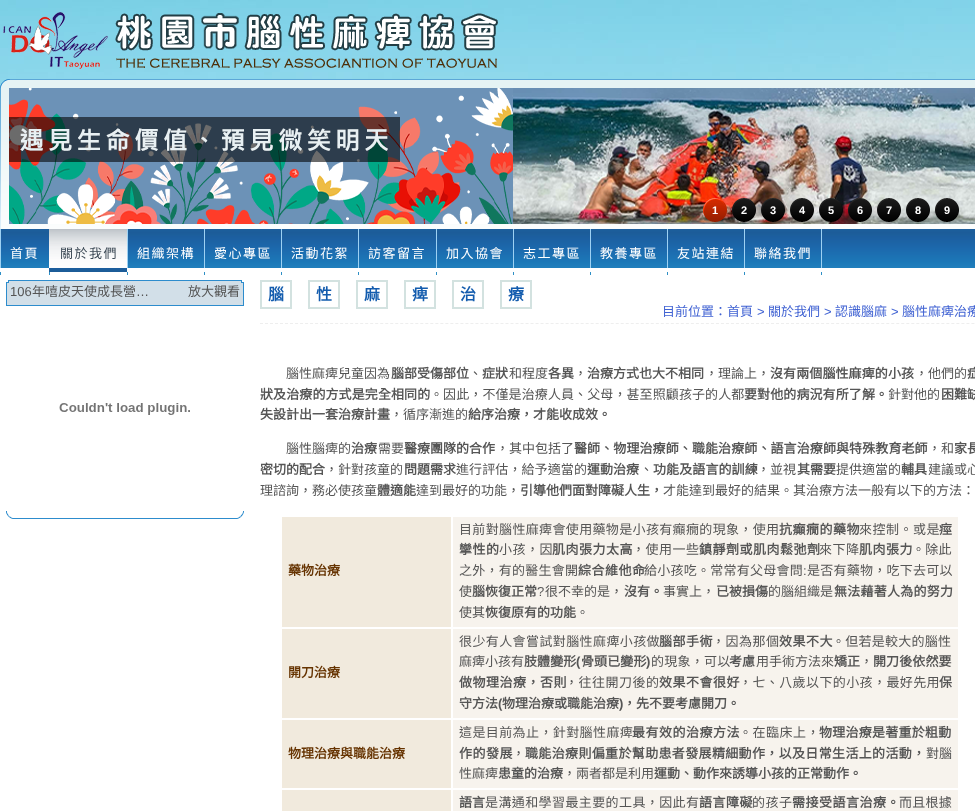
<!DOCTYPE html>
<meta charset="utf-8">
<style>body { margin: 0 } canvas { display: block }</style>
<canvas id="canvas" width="975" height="811"></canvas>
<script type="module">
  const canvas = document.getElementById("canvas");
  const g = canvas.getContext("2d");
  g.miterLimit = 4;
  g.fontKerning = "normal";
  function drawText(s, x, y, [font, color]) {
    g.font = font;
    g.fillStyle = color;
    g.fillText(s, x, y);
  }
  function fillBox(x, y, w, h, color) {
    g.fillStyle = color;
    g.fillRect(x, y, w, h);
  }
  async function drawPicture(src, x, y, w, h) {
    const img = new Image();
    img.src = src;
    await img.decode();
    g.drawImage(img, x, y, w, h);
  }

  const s1 = ["bold 11px Liberation Sans", "#FFFFFF"];
  const s2 = ["13px Noto Sans CJK TC", "#FFFFFF"];
  const s3 = ["13px Noto Sans CJK TC", "#3C4955"];
  const s4 = ["13px Liberation Sans", "#555555"];
  const s5 = ["13px Noto Sans CJK TC", "#555555"];
  const s6 = ["bold 16px Noto Sans CJK TC", "#135CAE"];
  const s7 = ["13px Noto Sans CJK TC", "#4163D3"];
  const s8 = ["13px Liberation Sans", "#4163D3"];
  const s9 = ["bold 13px Noto Sans CJK TC", "#555555"];
  const s10 = ["bold 13px Noto Sans CJK TC", "#663300"];
  const s11 = ["bold 13px Liberation Sans", "#555555"];

  fillBox(0, 0, 975, 811, "#FFFFFF");
  await drawPicture("pic1.png", 0, 0, 975, 229);
  await drawPicture("pic2.png", 3, 12, 495, 57);
  await drawPicture("pic3.png", 0, 79, 975, 150);
  await drawPicture("pic4.png", 9, 88, 966, 136);
  await drawPicture("pic5.png", 703, 198, 24, 24);
  drawText("1", 712, 214, s1);
  await drawPicture("pic6.png", 732, 198, 24, 24);
  drawText("2", 741, 214, s1);
  await drawPicture("pic7.png", 761, 198, 24, 24);
  drawText("3", 770, 214, s1);
  await drawPicture("pic8.png", 790, 198, 24, 24);
  drawText("4", 799, 214, s1);
  await drawPicture("pic9.png", 819, 198, 24, 24);
  drawText("5", 828, 214, s1);
  await drawPicture("pic10.png", 848, 198, 24, 24);
  drawText("6", 857, 214, s1);
  await drawPicture("pic11.png", 877, 198, 24, 24);
  drawText("7", 886, 214, s1);
  await drawPicture("pic12.png", 906, 198, 24, 24);
  drawText("8", 915, 214, s1);
  await drawPicture("pic13.png", 935, 198, 24, 24);
  drawText("9", 944, 214, s1);
  await drawPicture("pic14.png", 1, 229, 974, 43);
  await drawPicture("pic15.png", 821, 229, 1, 46);
  await drawPicture("pic15.png", 0, 229, 1, 46);
  g.letterSpacing = "1.5px";
  drawText("首頁", 10, 258, s2);
  await drawPicture("pic16.png", 49, 272, 1, 3);
  await drawPicture("pic17.png", 49, 229, 78, 43);
  drawText("關於我們", 60, 258, s3);
  await drawPicture("pic15.png", 127, 229, 1, 46);
  drawText("組織架構", 137, 258, s2);
  await drawPicture("pic15.png", 204, 229, 1, 46);
  drawText("愛心專區", 214, 258, s2);
  await drawPicture("pic15.png", 281, 229, 1, 46);
  drawText("活動花絮", 291, 258, s2);
  await drawPicture("pic15.png", 358, 229, 1, 46);
  drawText("訪客留言", 368, 258, s2);
  await drawPicture("pic15.png", 436, 229, 1, 46);
  drawText("加入協會", 446, 258, s2);
  await drawPicture("pic15.png", 513, 229, 1, 46);
  drawText("志工專區", 523, 258, s2);
  await drawPicture("pic15.png", 590, 229, 1, 46);
  drawText("教養專區", 600, 258, s2);
  await drawPicture("pic15.png", 667, 229, 1, 46);
  drawText("友站連結", 677, 258, s2);
  await drawPicture("pic15.png", 744, 229, 1, 46);
  drawText("聯絡我們", 754, 258, s2);
  await drawPicture("pic18.png", 6, 280, 238, 26);
  g.letterSpacing = "0px";
  drawText("106", 10, 296, s4);
  drawText("年嘻皮天使成長營", 32, 296, s5);
  drawText("…", 136, 296, s4);
  drawText("放大觀看", 188, 296, s5);
  await drawPicture("pic19.png", 59, 403, 131, 12);
  await drawPicture("pic20.png", 6, 511, 238, 8);
  g.strokeStyle = "#D3E2E0";
  g.lineWidth = 2;
  g.strokeRect(261, 281, 30, 27);
  drawText("腦", 268, 300, s6);
  g.strokeRect(309, 281, 30, 27);
  drawText("性", 316, 300, s6);
  g.strokeRect(357, 281, 30, 27);
  drawText("麻", 364, 300, s6);
  g.strokeRect(405, 281, 30, 27);
  drawText("痺", 412, 300, s6);
  g.strokeRect(453, 281, 30, 27);
  drawText("治", 460, 300, s6);
  g.strokeRect(501, 281, 30, 27);
  drawText("療", 508, 300, s6);
  drawText("目前位置：首頁", 662, 316, s7);
  drawText(">", 757, 316, s8);
  drawText("關於我們", 768, 316, s7);
  drawText(">", 824, 316, s8);
  drawText("認識腦麻", 835, 316, s7);
  drawText(">", 891, 316, s8);
  drawText("腦性麻痺治療", 902, 316, s7);
  g.beginPath();
  g.moveTo(260, 323.5);
  g.lineTo(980, 323.5);
  g.strokeStyle = "#EEEEEE";
  g.lineWidth = 1;
  g.setLineDash([3, 2.01]);
  g.stroke();
  drawText("腦性麻痺兒童因為", 286, 378, s5);
  drawText("腦部受傷部位", 391, 378, s9);
  drawText("、", 469, 378, s5);
  drawText("症狀", 482, 378, s9);
  drawText("和程度", 509, 378, s5);
  drawText("各異", 548, 378, s9);
  drawText("，", 574, 378, s5);
  drawText("治療方式也大不相同", 587, 378, s9);
  drawText("，理論上，", 705, 378, s5);
  g.letterSpacing = "0.1px";
  drawText("沒有兩個腦性麻痺的小孩", 770, 378, s9);
  g.letterSpacing = "0px";
  drawText("，他們的", 915, 378, s5);
  drawText("症", 967, 378, s9);
  g.letterSpacing = "0.1px";
  drawText("狀及治療的方式是完全相同的", 260, 399, s9);
  drawText("。因此，不僅是治療人員、父母，甚至照顧孩子的人都", 430, 399, s5);
  drawText("要對他的病況有所了解。", 744, 399, s9);
  g.letterSpacing = "0px";
  drawText("針對他的", 888, 399, s5);
  drawText("困難缺", 941, 399, s9);
  drawText("失設計出一套治療計畫", 260, 419, s9);
  drawText("，循序漸進的", 390, 419, s5);
  drawText("給序治療，才能收成效。", 468, 419, s9);
  drawText("腦性腦痺的", 286, 453, s5);
  drawText("治療", 351, 453, s9);
  drawText("需要", 378, 453, s5);
  drawText("醫療團隊的合作", 404, 453, s9);
  drawText("，其中包括了", 496, 453, s5);
  g.letterSpacing = "0.1px";
  drawText("醫師、物理治療師、職能治療師、語言治療師與特殊教育老師", 574, 453, s9);
  g.letterSpacing = "0px";
  drawText("，和", 928, 453, s5);
  drawText("家長", 954, 453, s9);
  drawText("密切的配合", 260, 474, s9);
  drawText("，針對孩童的", 325, 474, s5);
  drawText("問題需求", 404, 474, s9);
  g.letterSpacing = "0.1px";
  drawText("進行評估，給予適當的", 456, 474, s5);
  g.letterSpacing = "0px";
  drawText("運動治療", 587, 474, s9);
  drawText("、", 640, 474, s5);
  g.letterSpacing = "0.1px";
  drawText("功能及語言的訓練", 653, 474, s9);
  g.letterSpacing = "0px";
  drawText("，並視", 757, 474, s5);
  drawText("其需要", 797, 474, s9);
  drawText("提供適當的", 836, 474, s5);
  drawText("輔具", 901, 474, s9);
  drawText("建議或心", 928, 474, s5);
  drawText("理諮詢，務必使孩童", 260, 495, s5);
  drawText("體適能", 377, 495, s9);
  drawText("達到最好的功能，", 416, 495, s5);
  drawText("引導他們面對障礙人生，", 520, 495, s9);
  drawText("才能達到最好的結果。其治療方法一般有以下的方法：", 663, 495, s5);
  fillBox(282, 517, 169, 110, "#F1EADD");
  drawText("藥物治療", 288, 575, s10);
  fillBox(453, 517, 505, 110, "#F7F3ED");
  g.letterSpacing = "0.35px";
  drawText("目前對腦性麻痺會使用藥物是小孩有癲癇的現象，使用", 459, 534, s5);
  g.letterSpacing = "0.5px";
  drawText("抗癲癇的藥物", 779, 534, s9);
  drawText("來控制。或是", 859, 534, s5);
  g.letterSpacing = "0px";
  drawText("痙", 939, 534, s9);
  g.letterSpacing = "0.5px";
  drawText("攣性的", 459, 554, s9);
  drawText("小孩，因", 499, 554, s5);
  drawText("肌肉張力太高", 552, 554, s9);
  drawText("，使用一些", 632, 554, s5);
  drawText("鎮靜劑或肌肉鬆弛劑", 699, 554, s9);
  drawText("來下降", 819, 554, s5);
  drawText("肌肉張力", 859, 554, s9);
  g.letterSpacing = "0.25px";
  drawText("。除此", 912, 554, s5);
  drawText("之外，有的醫生會開", 459, 575, s5);
  g.letterSpacing = "0.5px";
  drawText("綜合維他命", 578, 575, s9);
  g.letterSpacing = "0.25px";
  drawText("給小孩吃。常常有父母會問", 644, 575, s5);
  drawText(":", 803, 575, s4);
  drawText("是否有藥物，吃下去可以", 807, 575, s5);
  g.letterSpacing = "0px";
  drawText("使", 459, 596, s5);
  drawText("腦恢復正常", 472, 596, s9);
  drawText("?", 537, 596, s4);
  drawText("很不幸的是，", 545, 596, s5);
  drawText("沒有。", 624, 596, s9);
  drawText("事實上，", 663, 596, s5);
  drawText("已被損傷", 716, 596, s9);
  drawText("的腦組織是", 768, 596, s5);
  g.letterSpacing = "0.25px";
  drawText("無法藉著人為的努力", 834, 596, s9);
  g.letterSpacing = "0px";
  drawText("使其", 459, 617, s5);
  drawText("恢復原有的功能", 485, 617, s9);
  drawText("。", 576, 617, s5);
  fillBox(282, 629, 169, 89, "#F1EADD");
  drawText("開刀治療", 288, 677, s10);
  fillBox(453, 629, 505, 89, "#F7F3ED");
  g.letterSpacing = "0.4px";
  drawText("很少有人會嘗試對腦性麻痺小孩做", 459, 646, s5);
  g.letterSpacing = "0.5px";
  drawText("腦部手術", 659, 646, s9);
  drawText("，因為那個", 712, 646, s5);
  drawText("效果不大", 779, 646, s9);
  g.letterSpacing = "0.25px";
  drawText("。但若是較大的腦性", 832, 646, s5);
  g.letterSpacing = "0px";
  drawText("麻痺小孩有", 459, 666, s5);
  g.letterSpacing = "0.1px";
  drawText("肢體變形", 524, 666, s9);
  drawText("(", 576, 666, s11);
  drawText("骨頭已變形", 581, 666, s9);
  drawText(")", 646, 666, s11);
  g.letterSpacing = "0.25px";
  drawText("的現象，可以", 651, 666, s5);
  g.letterSpacing = "0px";
  drawText("考慮", 729, 666, s9);
  drawText("用手術方法來", 756, 666, s5);
  drawText("矯正", 834, 666, s9);
  drawText("，", 860, 666, s5);
  g.letterSpacing = "0.1px";
  drawText("開刀後依然要", 873, 666, s9);
  g.letterSpacing = "0.5px";
  drawText("做物理治療，否則", 459, 687, s9);
  drawText("，往往開刀後的", 565, 687, s5);
  drawText("效果不會很好", 659, 687, s9);
  g.letterSpacing = "0.4px";
  drawText("，七、八歲以下的小孩，最好先用", 739, 687, s5);
  g.letterSpacing = "0px";
  drawText("保", 939, 687, s9);
  drawText("守方法", 459, 708, s9);
  drawText("(", 498, 708, s11);
  drawText("物理治療或職能治療", 502, 708, s9);
  drawText(")", 619, 708, s11);
  drawText("，先不要考慮開刀。", 623, 708, s9);
  fillBox(282, 720, 169, 68, "#F1EADD");
  drawText("物理治療與職能治療", 288, 758, s10);
  fillBox(453, 720, 505, 68, "#F7F3ED");
  g.letterSpacing = "0.4px";
  drawText("這是目前為止，針對腦性麻痺", 459, 737, s5);
  g.letterSpacing = "0.5px";
  drawText("最有效的治療方法", 632, 737, s9);
  drawText("。在臨床上，", 739, 737, s5);
  g.letterSpacing = "0.25px";
  drawText("物理治療是著重於粗動", 819, 737, s9);
  g.letterSpacing = "0.5px";
  drawText("作的發展", 459, 758, s9);
  g.letterSpacing = "0px";
  drawText("，", 512, 758, s5);
  g.letterSpacing = "0.35px";
  drawText("職能治療則偏重於幫助患者發展精細動作，以及日常生活上的活動，", 525, 758, s9);
  g.letterSpacing = "0px";
  drawText("對腦", 926, 758, s5);
  drawText("性麻痺", 459, 778, s5);
  drawText("患童的治療", 498, 778, s9);
  drawText("，兩者都是利用", 563, 778, s5);
  drawText("運動、動作來誘導小孩的正常動作。", 654, 778, s9);
  fillBox(282, 790, 169, 21, "#F1EADD");
  fillBox(453, 790, 505, 21, "#F7F3ED");
  drawText("語言", 459, 807, s9);
  g.letterSpacing = "0.4px";
  drawText("是溝通和學習最主要的工具，因此有", 485, 807, s5);
  g.letterSpacing = "0.5px";
  drawText("語言障礙", 699, 807, s9);
  drawText("的孩子", 752, 807, s5);
  drawText("需接受語言治療。", 792, 807, s9);
  g.letterSpacing = "0.25px";
  drawText("而且根據", 899, 807, s5);
</script>
